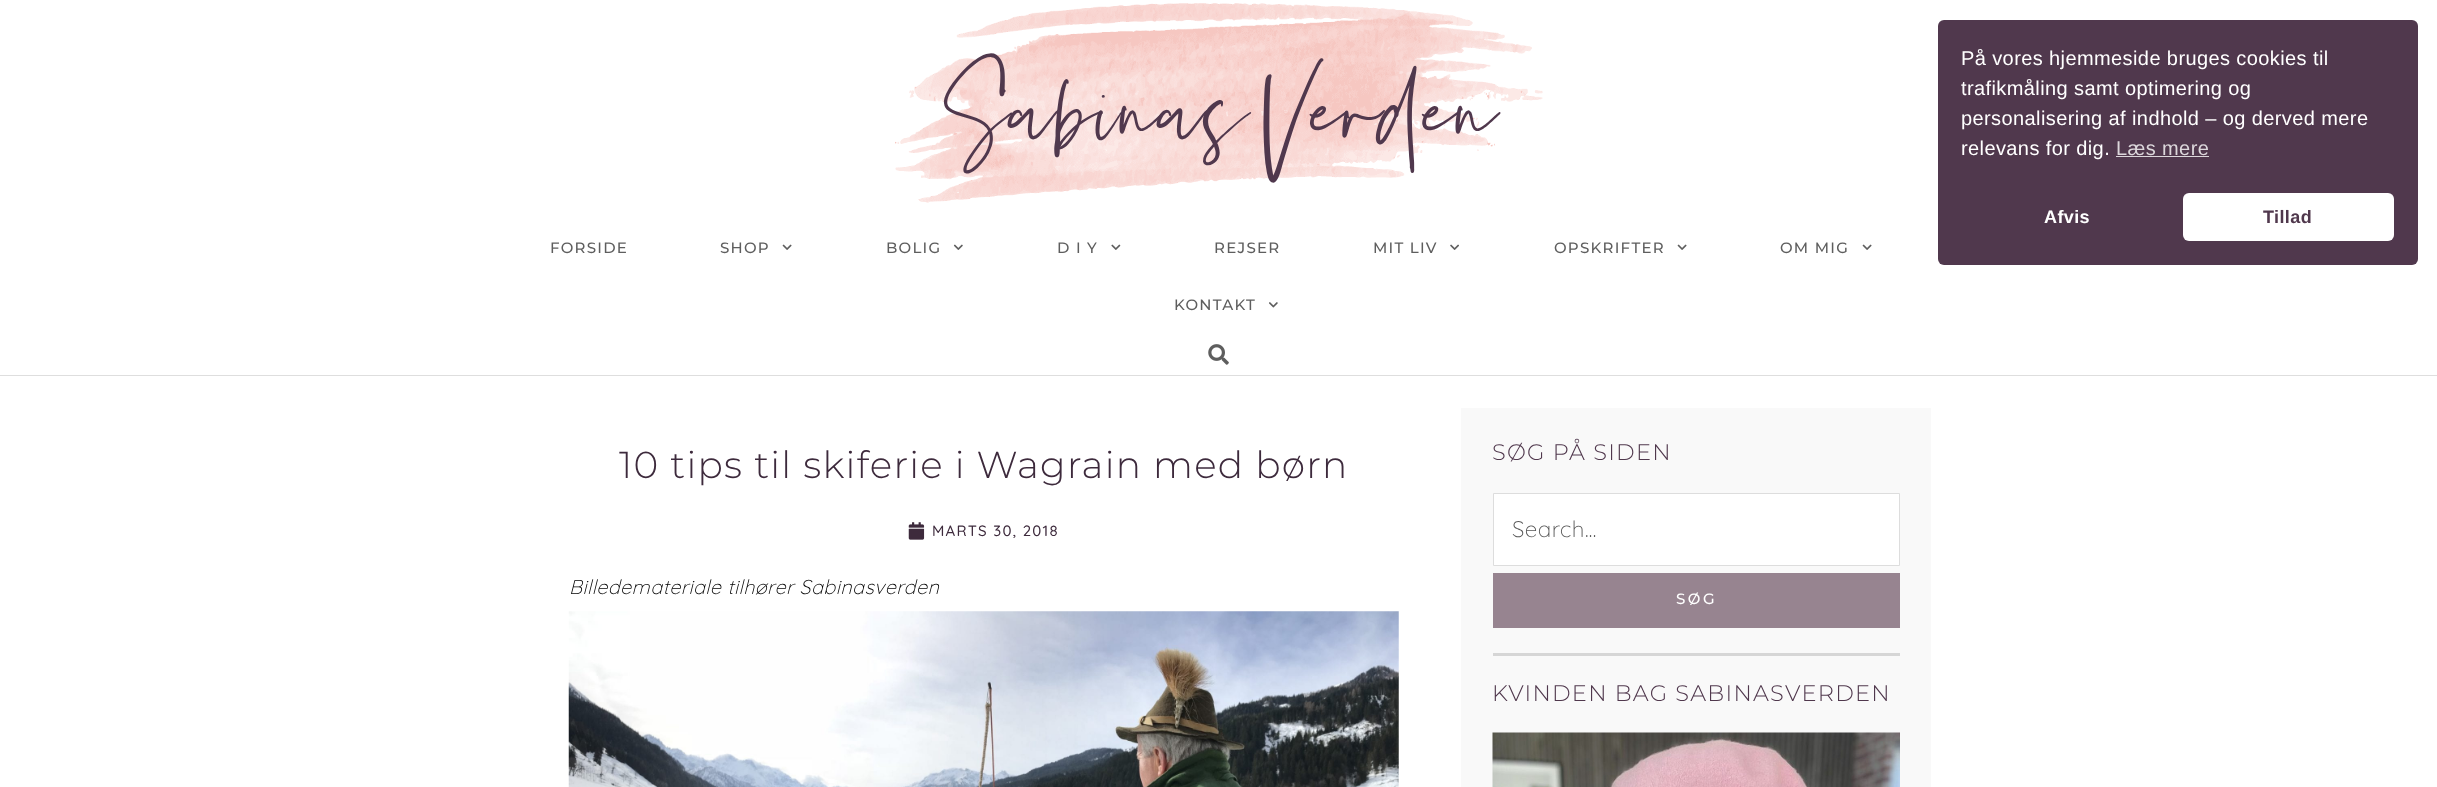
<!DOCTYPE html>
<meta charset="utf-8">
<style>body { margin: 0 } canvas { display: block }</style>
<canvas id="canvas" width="2437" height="787"></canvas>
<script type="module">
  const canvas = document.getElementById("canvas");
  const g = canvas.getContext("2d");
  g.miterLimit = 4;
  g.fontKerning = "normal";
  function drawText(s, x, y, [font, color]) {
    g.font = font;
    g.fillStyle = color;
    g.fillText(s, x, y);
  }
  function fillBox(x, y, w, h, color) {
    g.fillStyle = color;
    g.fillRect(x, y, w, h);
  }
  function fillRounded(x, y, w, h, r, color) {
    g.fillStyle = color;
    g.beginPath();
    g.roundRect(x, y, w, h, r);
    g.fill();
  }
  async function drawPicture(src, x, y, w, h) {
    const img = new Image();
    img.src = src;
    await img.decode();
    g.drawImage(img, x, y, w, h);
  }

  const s1 = ["125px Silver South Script", "#50384D"];
  const s2 = ["500 15px Montserrat", "#5E5E5E"];
  const s3 = ["300 37.5px Montserrat", "#3D2A3C"];
  const s4 = ["500 15px Quicksand", "#3D2A3C"];
  const s5 = ["italic 300 20px Quicksand", "#000000"];
  const s6 = ["300 22.5px Montserrat", "#50384D"];
  const s7 = ["300 22.5px Quicksand", "#555555"];
  const s8 = ["500 15px Montserrat", "#FFFFFF"];
  const s9 = ["20px Liberation Sans", "#FFFFFF"];
  const s10 = ["20px Liberation Sans", "#DCD7DB"];
  const s11 = ["bold 18px Liberation Sans", "#FFFFFF"];
  const s12 = ["bold 18px Liberation Sans", "#50384D"];

  fillBox(0, 0, 2437, 787, "#FFFFFF");
  fillBox(0, 375, 2437, 1, "#DEDEDE");
  await drawPicture("pic1.png", 895, 3, 648, 200);
  g.letterSpacing = "1.25px";
  drawText("SabinasVerden", 938, 151, s1);
  drawText("FORSIDE", 550, 253, s2);
  drawText("SHOP", 720, 253, s2);
  await drawPicture("pic2.png", 782, 244, 10, 6);
  drawText("BOLIG", 886, 253, s2);
  await drawPicture("pic3.png", 953, 244, 10, 6);
  drawText("D I Y", 1057, 253, s2);
  await drawPicture("pic4.png", 1111, 244, 10, 6);
  drawText("REJSER", 1214, 253, s2);
  drawText("MIT LIV", 1373, 253, s2);
  await drawPicture("pic5.png", 1450, 244, 9, 6);
  drawText("OPSKRIFTER", 1554, 253, s2);
  await drawPicture("pic2.png", 1677, 244, 10, 6);
  drawText("OM MIG", 1780, 253, s2);
  await drawPicture("pic2.png", 1862, 244, 10, 6);
  drawText("KONTAKT", 1174, 310, s2);
  await drawPicture("pic6.png", 1269, 302, 9, 6);
  await drawPicture("pic7.png", 1208, 344, 21, 21);
  drawText("10 tips til skiferie i Wagrain med børn", 619, 478, s3);
  await drawPicture("pic8.png", 908, 522, 17, 18);
  drawText("MARTS 30, 2018", 932, 536, s4);
  g.letterSpacing = "0.4px";
  drawText("Billedemateriale tilhører Sabinasverden", 569, 594, s5);
  await drawPicture("pic9.png", 568, 611, 831, 176);
  fillBox(1461, 408, 470, 379, "#F9F9F9");
  g.letterSpacing = "1.25px";
  drawText("SØG PÅ SIDEN", 1492, 460, s6);
  g.fillStyle = "#FFFFFF";
  g.beginPath();
  g.rect(1493.5, 493.5, 406, 72);
  g.fill();
  g.strokeStyle = "#DDDDDD";
  g.stroke();
  g.letterSpacing = "0.4px";
  drawText("Search...", 1512, 537, s7);
  fillBox(1493, 573, 407, 55, "#978490");
  g.letterSpacing = "2.5px";
  drawText("SØG", 1676, 604, s8);
  fillBox(1493, 653, 407, 3, "#D6D6D6");
  g.letterSpacing = "1.25px";
  drawText("KVINDEN BAG SABINASVERDEN", 1492, 701, s6);
  await drawPicture("pic10.png", 1492, 732, 408, 55);
  fillRounded(1938, 20, 480, 245, 6, "#50384D");
  g.letterSpacing = "0.4px";
  drawText("På vores hjemmeside bruges cookies til", 1961, 65, s9);
  drawText("trafikmåling samt optimering og", 1961, 95, s9);
  drawText("personalisering af indhold – og derved mere", 1961, 125, s9);
  drawText("relevans for dig.", 1961, 155, s9);
  drawText("Læs mere", 2116, 155, s10);
  fillBox(2116, 156, 93, 1, "#DCD7DB");
  drawText("Afvis", 2044, 223, s11);
  fillRounded(2183, 193, 211, 48, 6, "#FFFFFF");
  drawText("Tillad", 2263, 223, s12);
</script>
